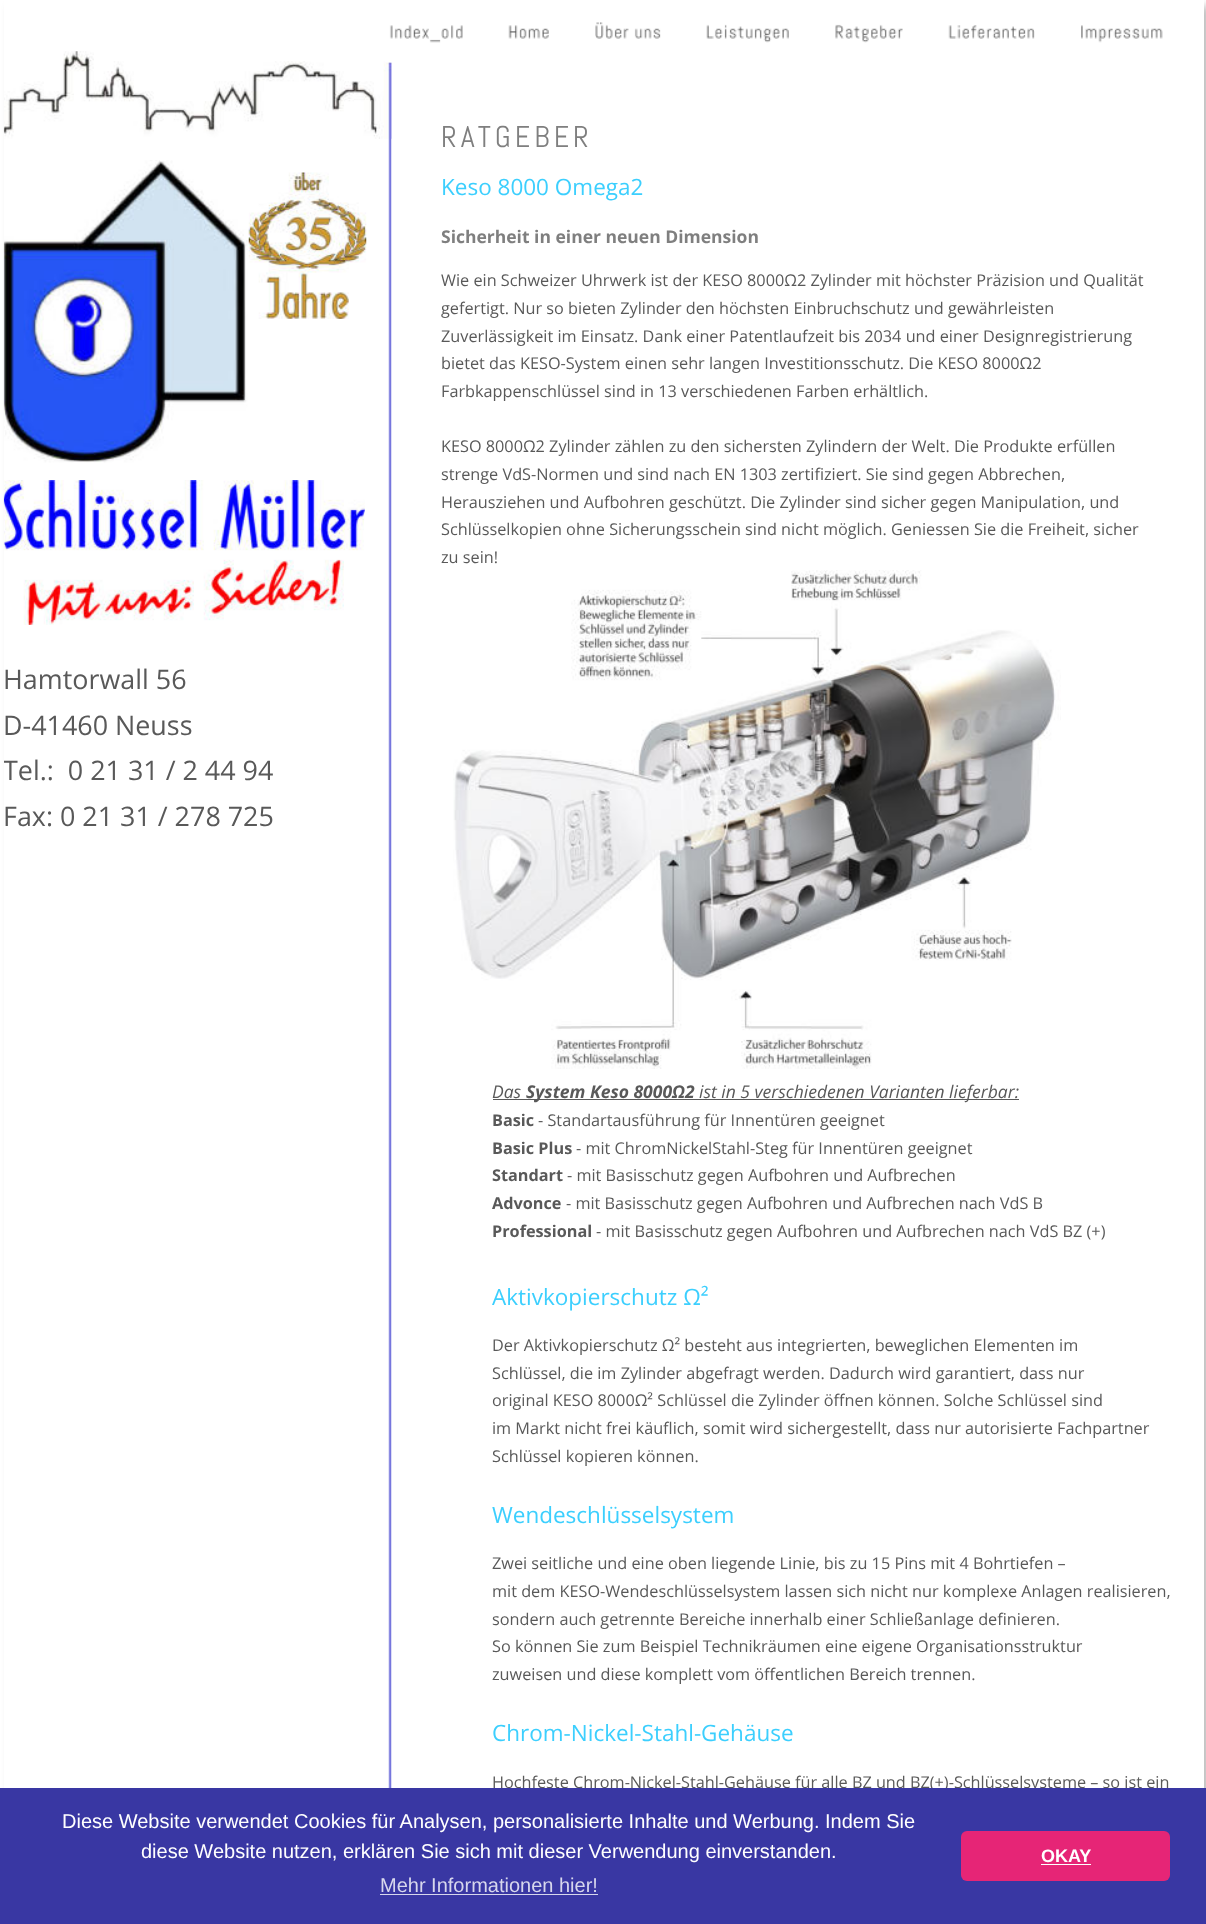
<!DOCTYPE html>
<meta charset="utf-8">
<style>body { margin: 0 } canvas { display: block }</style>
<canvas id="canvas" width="1206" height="1924"></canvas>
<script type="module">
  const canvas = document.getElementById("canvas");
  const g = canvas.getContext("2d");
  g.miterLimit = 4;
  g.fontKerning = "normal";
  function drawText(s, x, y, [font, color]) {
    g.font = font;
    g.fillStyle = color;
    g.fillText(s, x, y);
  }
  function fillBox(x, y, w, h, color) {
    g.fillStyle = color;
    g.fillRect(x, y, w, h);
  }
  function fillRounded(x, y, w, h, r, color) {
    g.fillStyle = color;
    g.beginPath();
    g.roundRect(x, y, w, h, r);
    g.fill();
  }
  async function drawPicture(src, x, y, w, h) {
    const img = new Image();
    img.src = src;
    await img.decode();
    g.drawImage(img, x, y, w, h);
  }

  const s1 = ["30px Abel", "#7F7F7F"];
  const s2 = ["22.5px Open Sans", "#3CCFFE"];
  const s3 = ["bold 17.5px Open Sans", "#7F7F7F"];
  const s4 = ["16.25px Open Sans", "#595959"];
  const s5 = ["26.9px Open Sans", "#595959"];
  const s6 = ["italic 17.5px Open Sans", "#595959"];
  const s7 = ["italic bold 17.5px Open Sans", "#595959"];
  const s8 = ["bold 16.25px Open Sans", "#595959"];
  const s9 = ["20px Liberation Sans", "#FFFFFF"];
  const s10 = ["20px Liberation Sans", "#D7D7ED"];
  const s11 = ["bold 18px Liberation Sans", "#FFFFFF"];

  fillBox(0, 0, 1206, 1924, "#FFFFFF");
  g.fillStyle = "rgba(0, 0, 0, 0.25)";
  g.filter = "blur(4px)";
  g.beginPath();
  g.rect(10, 6, 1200, 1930);
  g.fill();
  g.filter = "none";
  fillBox(4, 0, 1200, 1788, "#FFFFFF");
  await drawPicture("pic11.png", 388, 62, 4, 1726);
  await drawPicture("pic8.png", 3, 51, 389, 88);
  await drawPicture("pic1.png", 385, 25, 78, 38);
  await drawPicture("pic2.png", 508, 25, 41, 14);
  await drawPicture("pic3.png", 595, 22, 66, 17);
  await drawPicture("pic4.png", 706, 24, 83, 19);
  await drawPicture("pic5.png", 835, 24, 68, 19);
  await drawPicture("pic6.png", 948, 25, 87, 14);
  await drawPicture("pic7.png", 1081, 25, 82, 18);
  await drawPicture("pic9.png", 3, 160, 245, 303);
  await drawPicture("pic10.png", 248, 172, 119, 147);
  g.letterSpacing = "4px";
  drawText("RATGEBER", 441, 147, s1);
  g.letterSpacing = "0px";
  drawText("Keso 8000 Omega2", 441, 195, s2);
  drawText("Sicherheit in einer neuen Dimension", 441, 243, s3);
  drawText("Wie ein Schweizer Uhrwerk ist der KESO 8000Ω2 Zylinder mit höchster Präzision und Qualität", 441, 286, s4);
  drawText("gefertigt. Nur so bieten Zylinder den höchsten Einbruchschutz und gewährleisten", 441, 314, s4);
  drawText("Zuverlässigkeit im Einsatz. Dank einer Patentlaufzeit bis 2034 und einer Designregistrierung", 441, 342, s4);
  drawText("bietet das KESO-System einen sehr langen Investitionsschutz. Die KESO 8000Ω2", 441, 369, s4);
  drawText("Farbkappenschlüssel sind in 13 verschiedenen Farben erhältlich.", 441, 397, s4);
  drawText("KESO 8000Ω2 Zylinder zählen zu den sichersten Zylindern der Welt. Die Produkte erfüllen", 441, 452, s4);
  drawText("strenge VdS-Normen und sind nach EN 1303 zertifiziert. Sie sind gegen Abbrechen,", 441, 480, s4);
  drawText("Herausziehen und Aufbohren geschützt. Die Zylinder sind sicher gegen Manipulation, und", 441, 508, s4);
  drawText("Schlüsselkopien ohne Sicherungsschein sind nicht möglich. Geniessen Sie die Freiheit, sicher", 441, 535, s4);
  drawText("zu sein!", 441, 563, s4);
  await drawPicture("pic12.png", 3, 480, 362, 145);
  drawText("Hamtorwall 56", 3, 689, s5);
  drawText("D-41460 Neuss", 3, 735, s5);
  g.save();
  g.beginPath();
  g.rect(4, 0, 1200, 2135);
  g.clip();
  drawText("Tel.:  0 21 31 / 2 44 94", 3, 780, s5);
  g.restore();
  drawText("Fax: 0 21 31 / 278 725", 3, 826, s5);
  await drawPicture("pic13.png", 453, 570, 608, 499);
  drawText("Das", 492, 1098, s6);
  fillBox(493, 1099, 526, 1, "#595959");
  drawText("System Keso 8000Ω2", 526, 1098, s7);
  drawText("ist in 5 verschiedenen Varianten lieferbar:", 699, 1098, s6);
  drawText("Basic", 492, 1126, s8);
  drawText("- Standartausführung für Innentüren geeignet", 538, 1126, s4);
  drawText("Basic Plus", 492, 1154, s8);
  drawText("- mit ChromNickelStahl-Steg für Innentüren geeignet", 576, 1154, s4);
  drawText("Standart", 492, 1181, s8);
  drawText("- mit Basisschutz gegen Aufbohren und Aufbrechen", 567, 1181, s4);
  drawText("Advonce", 492, 1209, s8);
  drawText("- mit Basisschutz gegen Aufbohren und Aufbrechen nach VdS B", 566, 1209, s4);
  drawText("Professional", 492, 1237, s8);
  drawText("- mit Basisschutz gegen Aufbohren und Aufbrechen nach VdS BZ (+)", 596, 1237, s4);
  drawText("Aktivkopierschutz Ω²", 492, 1305, s2);
  drawText("Der Aktivkopierschutz Ω² besteht aus integrierten, beweglichen Elementen im", 492, 1351, s4);
  drawText("Schlüssel, die im Zylinder abgefragt werden. Dadurch wird garantiert, dass nur", 492, 1379, s4);
  drawText("original KESO 8000Ω² Schlüssel die Zylinder öffnen können. Solche Schlüssel sind", 492, 1406, s4);
  drawText("im Markt nicht frei käuflich, somit wird sichergestellt, dass nur autorisierte Fachpartner", 492, 1434, s4);
  drawText("Schlüssel kopieren können.", 492, 1462, s4);
  drawText("Wendeschlüsselsystem", 492, 1523, s2);
  drawText("Zwei seitliche und eine oben liegende Linie, bis zu 15 Pins mit 4 Bohrtiefen –", 492, 1569, s4);
  drawText("mit dem KESO-Wendeschlüsselsystem lassen sich nicht nur komplexe Anlagen realisieren,", 492, 1597, s4);
  drawText("sondern auch getrennte Bereiche innerhalb einer Schließanlage definieren.", 492, 1625, s4);
  drawText("So können Sie zum Beispiel Technikräumen eine eigene Organisationsstruktur", 492, 1652, s4);
  drawText("zuweisen und diese komplett vom öffentlichen Bereich trennen.", 492, 1680, s4);
  drawText("Chrom-Nickel-Stahl-Gehäuse", 492, 1741, s2);
  drawText("Hochfeste Chrom-Nickel-Stahl-Gehäuse für alle BZ und BZ(+)-Schlüsselsysteme – so ist ein", 492, 1788, s4);
  fillBox(0, 1788, 1206, 136, "#3937A3");
  drawText("Diese Website verwendet Cookies für Analysen, personalisierte Inhalte und Werbung. Indem Sie", 62, 1828, s9);
  drawText("diese Website nutzen, erklären Sie sich mit dieser Verwendung einverstanden.", 141, 1858, s9);
  drawText("Mehr Informationen hier!", 380, 1892, s10);
  fillBox(380, 1894, 218, 1, "#D7D7ED");
  fillRounded(961, 1831, 209, 50, 6, "#E62576");
  drawText("OKAY", 1041, 1862, s11);
  fillBox(1041, 1864, 50, 1, "#FFFFFF");
</script>
